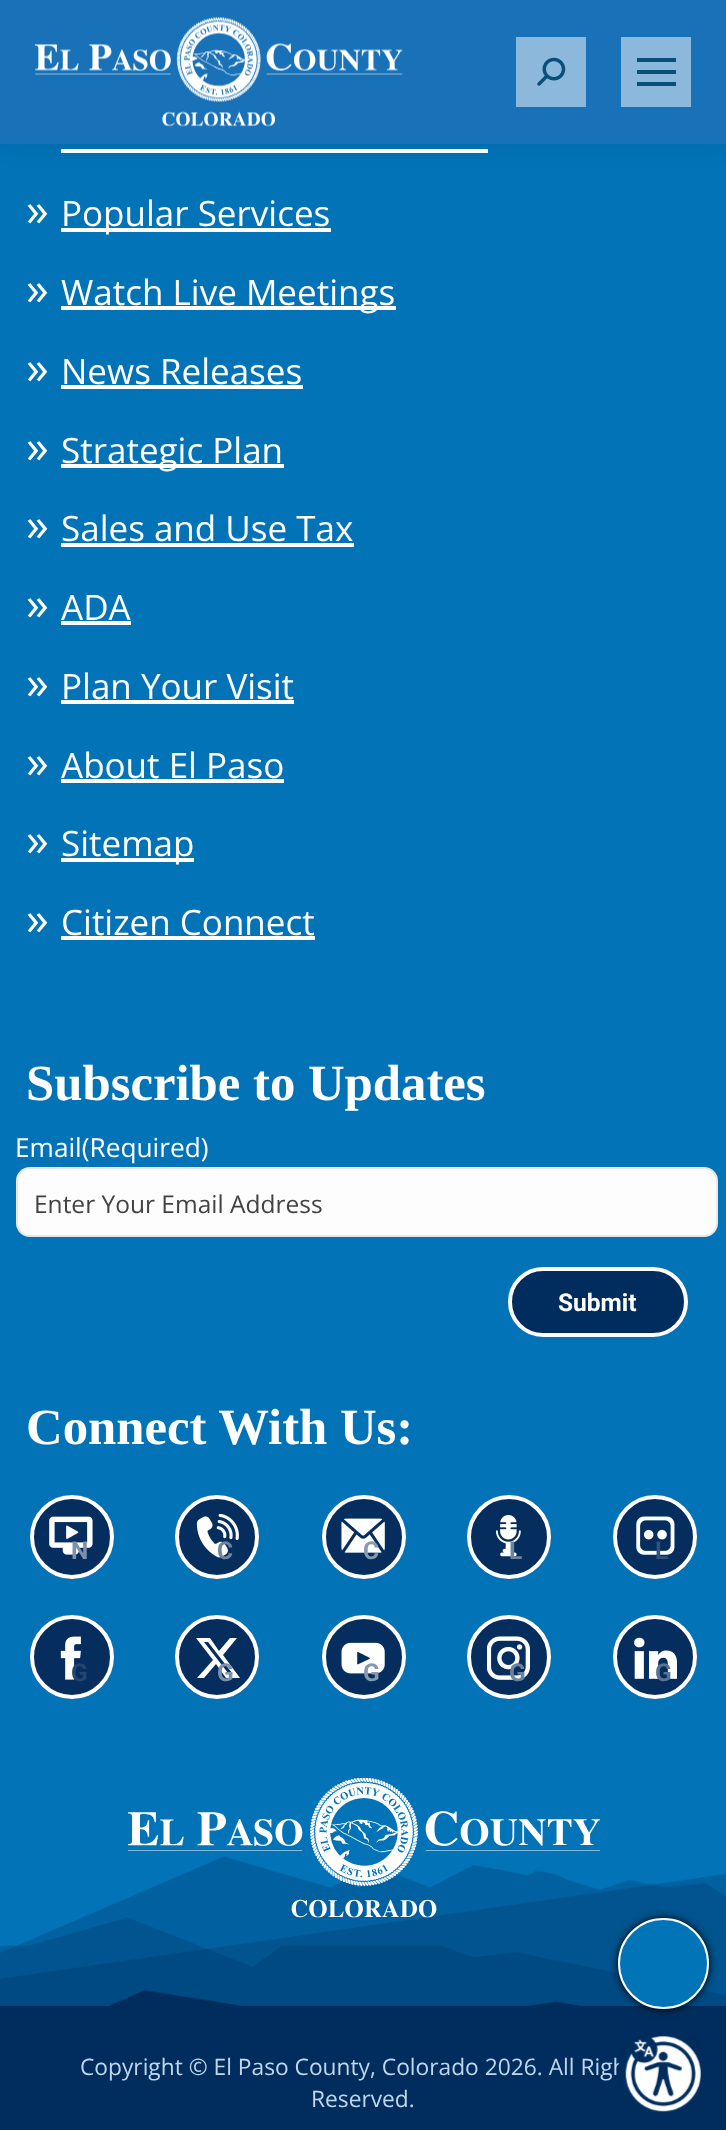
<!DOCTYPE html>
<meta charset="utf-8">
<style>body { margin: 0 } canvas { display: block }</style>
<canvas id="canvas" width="726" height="2130"></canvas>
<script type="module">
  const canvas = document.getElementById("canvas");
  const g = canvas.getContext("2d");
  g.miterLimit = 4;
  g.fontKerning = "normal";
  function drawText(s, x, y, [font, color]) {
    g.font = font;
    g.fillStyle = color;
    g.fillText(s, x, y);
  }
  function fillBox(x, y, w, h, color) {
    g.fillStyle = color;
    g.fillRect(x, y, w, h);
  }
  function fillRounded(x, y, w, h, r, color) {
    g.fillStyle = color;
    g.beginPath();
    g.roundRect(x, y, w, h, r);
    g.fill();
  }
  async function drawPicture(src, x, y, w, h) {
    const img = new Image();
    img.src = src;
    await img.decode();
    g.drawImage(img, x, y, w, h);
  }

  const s1 = ["46px Open Sans", "#FFFFFF"];
  const s2 = ["35px Open Sans", "#FFFFFF"];
  const s3 = ["bold 50.75px Liberation Serif", "#FFFFFF"];
  const s4 = ["26.25px Open Sans", "#FFFFFF"];
  const s5 = ["24.5px Open Sans", "#424242"];
  const s6 = ["bold 24.5px Roboto", "#FFFFFF"];
  const s7 = ["bold 24.5px Roboto", "#7C91AA"];
  const s8 = ["bold 24.5px Roboto", "#6C84A0"];
  const s9 = ["bold 24.5px Roboto", "#8599B0"];
  const s10 = ["bold 24.5px Roboto", "#315279"];
  const s11 = ["bold 24.5px Roboto", "#234670"];
  const s12 = ["bold 24.5px Roboto", "#587293"];
  const s13 = ["22.75px Open Sans", "#BFD7ED"];

  fillBox(0, 0, 726, 2130, "#0273B7");
  fillBox(61, 149, 427, 4, "#FFFFFF");
  g.fillStyle = "rgba(0, 0, 0, 0.07)";
  g.filter = "blur(13px)";
  g.beginPath();
  g.rect(-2, -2, 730, 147);
  g.fill();
  g.filter = "none";
  fillBox(0, 0, 726, 144, "#1972B7");
  await drawPicture("pic1.png", 35, 17, 368, 110);
  fillBox(516, 37, 70, 70, "#8CB9DB");
  await drawPicture("pic2.png", 537, 57, 29, 29);
  fillBox(621, 37, 70, 70, "#8CB9DB");
  fillBox(637, 58, 39, 4, "#084F79");
  fillBox(637, 70, 39, 4, "#084F79");
  fillBox(637, 82, 39, 4, "#084F79");
  await drawPicture("pic3.png", 0, 1856, 726, 150);
  drawText("»", 26, 226, s1);
  fillBox(61, 228, 270, 4, "#FFFFFF");
  drawText("Popular Services", 61, 226, s2);
  drawText("»", 26, 305, s1);
  fillBox(61, 306, 335, 4, "#FFFFFF");
  drawText("Watch Live Meetings", 61, 305, s2);
  drawText("»", 26, 384, s1);
  drawText("News Releases", 61, 384, s2);
  fillBox(61, 385, 242, 4, "#FFFFFF");
  drawText("»", 26, 463, s1);
  fillBox(61, 464, 223, 4, "#FFFFFF");
  drawText("Strategic Plan", 61, 463, s2);
  drawText("»", 26, 541, s1);
  drawText("Sales and Use Tax", 61, 541, s2);
  fillBox(61, 543, 293, 4, "#FFFFFF");
  drawText("»", 26, 620, s1);
  drawText("ADA", 61, 620, s2);
  fillBox(61, 621, 70, 4, "#FFFFFF");
  drawText("»", 26, 699, s1);
  drawText("Plan Your Visit", 61, 699, s2);
  fillBox(61, 700, 233, 4, "#FFFFFF");
  drawText("»", 26, 778, s1);
  drawText("About El Paso", 61, 778, s2);
  fillBox(61, 779, 223, 4, "#FFFFFF");
  drawText("»", 26, 856, s1);
  fillBox(61, 858, 133, 4, "#FFFFFF");
  drawText("Sitemap", 61, 856, s2);
  drawText("»", 26, 935, s1);
  drawText("Citizen Connect", 61, 935, s2);
  fillBox(61, 936, 254, 4, "#FFFFFF");
  drawText("Subscribe to Updates", 26, 1100, s3);
  drawText("Email(Required)", 15, 1157, s4);
  fillRounded(16, 1167, 702, 70, 14, "#FDFDFD");
  g.beginPath();
  g.roundRect(17, 1168, 700, 68, 13);
  g.strokeStyle = "rgba(51, 51, 51, 0.11)";
  g.lineWidth = 2;
  g.stroke();
  drawText("Enter Your Email Address", 34, 1213, s5);
  g.fillStyle = "#002D5D";
  g.beginPath();
  g.roundRect(510, 1269, 176, 66, 33);
  g.fill();
  g.strokeStyle = "#FFFFFF";
  g.lineWidth = 4;
  g.stroke();
  drawText("Submit", 558, 1311, s6);
  drawText("Connect With Us:", 26, 1444, s3);
  g.fillStyle = "#052D5D";
  g.beginPath();
  g.arc(72, 1537, 42, 0, Math.PI * 2);
  g.fill();
  await drawPicture("pic4.png", 49, 1516, 44, 39);
  g.beginPath();
  g.arc(72, 1537, 40, 0, Math.PI * 2);
  g.stroke();
  drawText("N", 71, 1559, s7);
  g.fillStyle = "#052D5D";
  g.beginPath();
  g.arc(217, 1537, 42, 0, Math.PI * 2);
  g.fill();
  await drawPicture("pic5.png", 196, 1514, 43, 44);
  g.beginPath();
  g.arc(217, 1537, 40, 0, Math.PI * 2);
  g.stroke();
  drawText("C", 217, 1559, s8);
  g.fillStyle = "#052D5D";
  g.beginPath();
  g.arc(364, 1537, 42, 0, Math.PI * 2);
  g.fill();
  await drawPicture("pic6.png", 341, 1518, 44, 35);
  g.beginPath();
  g.arc(364, 1537, 40, 0, Math.PI * 2);
  g.stroke();
  drawText("C", 363, 1559, s9);
  g.fillStyle = "#052D5D";
  g.beginPath();
  g.arc(509, 1537, 42, 0, Math.PI * 2);
  g.fill();
  await drawPicture("pic7.png", 496, 1515, 25, 42);
  g.beginPath();
  g.arc(509, 1537, 40, 0, Math.PI * 2);
  g.stroke();
  drawText("L", 509, 1559, s8);
  g.fillStyle = "#052D5D";
  g.beginPath();
  g.arc(655, 1537, 42, 0, Math.PI * 2);
  g.fill();
  await drawPicture("pic8.png", 636, 1516, 39, 39);
  g.beginPath();
  g.arc(655, 1537, 40, 0, Math.PI * 2);
  g.stroke();
  drawText("L", 655, 1559, s10);
  g.fillStyle = "#052D5D";
  g.beginPath();
  g.arc(72, 1657, 42, 0, Math.PI * 2);
  g.fill();
  await drawPicture("pic9.png", 60, 1636, 21, 44);
  g.beginPath();
  g.arc(72, 1657, 40, 0, Math.PI * 2);
  g.stroke();
  drawText("G", 71, 1681, s11);
  g.fillStyle = "#052D5D";
  g.beginPath();
  g.arc(217, 1657, 42, 0, Math.PI * 2);
  g.fill();
  g.fillStyle = "#FFFFFF";
  g.beginPath();
  g.moveTo(230, 1638);
  g.lineTo(237, 1638);
  g.lineTo(223, 1655);
  g.lineTo(240, 1678);
  g.lineTo(226, 1678);
  g.lineTo(216, 1664);
  g.lineTo(204, 1678);
  g.lineTo(197, 1678);
  g.lineTo(213, 1660);
  g.lineTo(196, 1638);
  g.lineTo(210, 1638);
  g.lineTo(219, 1651);
  g.closePath();
  g.moveTo(228, 1673);
  g.lineTo(232, 1673);
  g.lineTo(208, 1642);
  g.lineTo(204, 1642);
  g.closePath();
  g.fill();
  g.beginPath();
  g.arc(217, 1657, 40, 0, Math.PI * 2);
  g.stroke();
  drawText("G", 217, 1681, s7);
  g.fillStyle = "#052D5D";
  g.beginPath();
  g.arc(364, 1657, 42, 0, Math.PI * 2);
  g.fill();
  await drawPicture("pic10.png", 341, 1642, 44, 32);
  g.beginPath();
  g.arc(364, 1657, 40, 0, Math.PI * 2);
  g.stroke();
  drawText("G", 363, 1681, s9);
  g.fillStyle = "#052D5D";
  g.beginPath();
  g.arc(509, 1657, 42, 0, Math.PI * 2);
  g.fill();
  await drawPicture("pic11.png", 487, 1636, 43, 44);
  g.beginPath();
  g.arc(509, 1657, 40, 0, Math.PI * 2);
  g.stroke();
  drawText("G", 509, 1681, s8);
  g.fillStyle = "#052D5D";
  g.beginPath();
  g.arc(655, 1657, 42, 0, Math.PI * 2);
  g.fill();
  await drawPicture("pic12.png", 634, 1637, 43, 42);
  g.beginPath();
  g.arc(655, 1657, 40, 0, Math.PI * 2);
  g.stroke();
  drawText("G", 655, 1681, s12);
  await drawPicture("pic13.png", 128, 1778, 472, 140);
  fillBox(0, 2006, 726, 124, "#002D5D");
  g.fillStyle = "#000000";
  g.filter = "blur(4.5px)";
  g.beginPath();
  g.roundRect(618, 1918, 91, 91, 45.5);
  g.fill();
  g.filter = "none";
  g.fillStyle = "#0074B7";
  g.beginPath();
  g.arc(663.5, 1963.5, 44.5, 0, Math.PI * 2);
  g.fill();
  g.lineWidth = 2;
  g.stroke();
  drawText("Copyright © El Paso County, Colorado 2026. All Righ", 80, 2075, s13);
  drawText("Reserved.", 311, 2107, s13);
  await drawPicture("pic14.png", 618, 2036, 83, 76);
  await drawPicture("pic15.png", 618, 2062, 2, 3);
</script>
